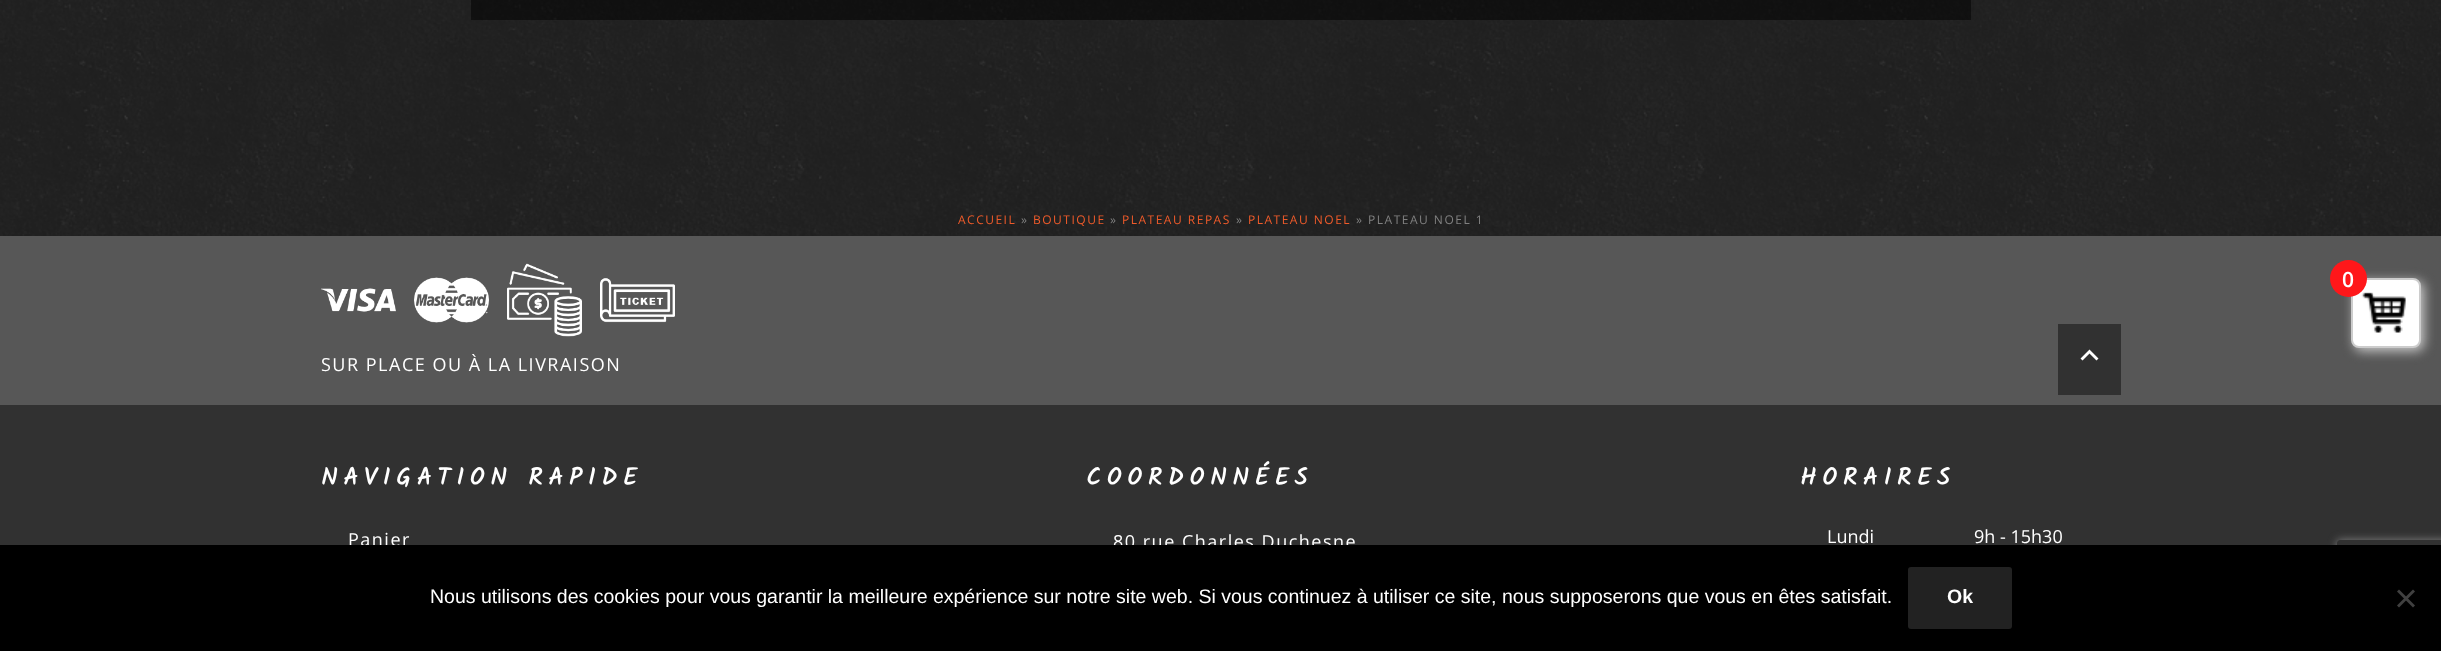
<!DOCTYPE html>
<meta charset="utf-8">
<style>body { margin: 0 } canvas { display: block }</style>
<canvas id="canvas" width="2441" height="651"></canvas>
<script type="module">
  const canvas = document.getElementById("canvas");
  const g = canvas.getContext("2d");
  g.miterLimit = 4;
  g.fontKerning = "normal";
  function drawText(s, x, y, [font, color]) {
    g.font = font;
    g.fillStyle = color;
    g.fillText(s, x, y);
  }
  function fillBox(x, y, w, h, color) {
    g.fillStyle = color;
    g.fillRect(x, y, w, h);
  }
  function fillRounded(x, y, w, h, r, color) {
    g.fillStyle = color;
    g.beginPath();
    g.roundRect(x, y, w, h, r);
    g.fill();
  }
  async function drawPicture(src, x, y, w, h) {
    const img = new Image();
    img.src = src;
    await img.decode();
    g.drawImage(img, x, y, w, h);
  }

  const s1 = ["12px Open Sans", "#F05B2A"];
  const s2 = ["12px Open Sans", "#808080"];
  const s3 = ["18px Open Sans", "#FFFFFF"];
  const s4 = ["bold 24px Kalam", "#FFFFFF"];
  const s5 = ["600 21px Open Sans", "#FFFFFF"];
  const s6 = ["19.5px Liberation Sans", "#FFFFFF"];
  const s7 = ["bold 19.5px Liberation Sans", "#FFFFFF"];

  fillBox(0, 0, 2441, 651, "#FFFFFF");
  await drawPicture("pic1.png", 0, 0, 2441, 236);
  fillBox(471, 0, 1500, 20, "rgba(0, 0, 0, 0.5)");
  g.letterSpacing = "1.5px";
  drawText("ACCUEIL", 958, 224, s1);
  drawText("»", 1021, 224, s2);
  drawText("BOUTIQUE", 1033, 224, s1);
  drawText("»", 1110, 224, s2);
  drawText("PLATEAU REPAS", 1122, 224, s1);
  drawText("»", 1236, 224, s2);
  drawText("PLATEAU NOEL", 1248, 224, s1);
  drawText("» PLATEAU NOEL 1", 1356, 224, s2);
  fillBox(0, 236, 2441, 169, "#575757");
  await drawPicture("pic2.png", 321, 288, 75, 24);
  await drawPicture("pic3.png", 414, 277, 75, 46);
  await drawPicture("pic4.png", 507, 263, 75, 74);
  await drawPicture("pic5.png", 600, 278, 75, 45);
  drawText("SUR PLACE OU À LA LIVRAISON", 321, 371, s3);
  fillBox(0, 405, 2441, 140, "#313131");
  fillBox(2058, 324, 63, 71, "#313131");
  g.fillStyle = "#FFFFFF";
  g.beginPath();
  g.moveTo(2082.5, 360.5);
  g.lineTo(2080.5, 358.5);
  g.lineTo(2089.5, 349.5);
  g.lineTo(2098.5, 358.5);
  g.lineTo(2096.5, 360.5);
  g.lineTo(2089.5, 353.5);
  g.closePath();
  g.fill();
  g.letterSpacing = "6px";
  drawText("NAVIGATION RAPIDE", 321, 485, s4);
  g.letterSpacing = "1.5px";
  drawText("Panier", 348, 546, s3);
  g.letterSpacing = "6px";
  drawText("COORDONNÉES", 1086, 485, s4);
  g.letterSpacing = "1.5px";
  drawText("80 rue Charles Duchesne", 1113, 548, s3);
  g.letterSpacing = "6px";
  drawText("HORAIRES", 1800, 485, s4);
  g.letterSpacing = "0px";
  drawText("Lundi", 1827, 543, s3);
  drawText("9h - 15h30", 1974, 543, s3);
  g.fillStyle = "#CCCCCC";
  g.filter = "blur(6px)";
  g.beginPath();
  g.roundRect(2354, 281, 70, 70, 8);
  g.fill();
  g.filter = "none";
  g.fillStyle = "#FFFFFF";
  g.beginPath();
  g.roundRect(2352, 279, 68, 68, 7);
  g.fill();
  g.strokeStyle = "#CCCCCC";
  g.lineWidth = 2;
  g.stroke();
  await drawPicture("pic6.png", 2361, 292, 45, 41);
  g.fillStyle = "#FF171A";
  g.beginPath();
  g.arc(2348.5, 278.5, 18.5, 0, Math.PI * 2);
  g.fill();
  drawText("0", 2342, 287, s5);
  g.save();
  g.beginPath();
  g.moveTo(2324, 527);
  g.lineTo(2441, 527);
  g.lineTo(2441, 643);
  g.lineTo(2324, 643);
  g.closePath();
  g.moveTo(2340, 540);
  g.lineTo(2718, 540);
  g.bezierCurveTo(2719.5, 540, 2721, 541.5, 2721, 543);
  g.lineTo(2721, 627);
  g.bezierCurveTo(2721, 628.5, 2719.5, 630, 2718, 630);
  g.lineTo(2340, 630);
  g.bezierCurveTo(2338.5, 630, 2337, 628.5, 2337, 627);
  g.lineTo(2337, 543);
  g.bezierCurveTo(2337, 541.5, 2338.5, 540, 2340, 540);
  g.closePath();
  g.clip("evenodd");
  g.fillStyle = "#808080";
  g.filter = "blur(4px)";
  g.beginPath();
  g.roundRect(2337, 540, 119, 90, 3);
  g.fill();
  g.filter = "none";
  g.restore();
  fillBox(0, 545, 2441, 106, "#000000");
  drawText("Nous utilisons des cookies pour vous garantir la meilleure expérience sur notre site web. Si vous continuez à utiliser ce site, nous supposerons que vous en êtes satisfait.", 430, 603, s6);
  fillRounded(1908, 567, 104, 62, 3, "#222222");
  drawText("Ok", 1947, 603, s7);
  g.fillStyle = "#404040";
  g.beginPath();
  g.moveTo(2413, 589.5);
  g.lineTo(2415, 591.5);
  g.lineTo(2399, 607.5);
  g.lineTo(2397, 605.5);
  g.closePath();
  g.fill();
  g.beginPath();
  g.moveTo(2397, 591.5);
  g.lineTo(2399, 589.5);
  g.lineTo(2415, 605.5);
  g.lineTo(2413, 607.5);
  g.closePath();
  g.fill();
</script>
